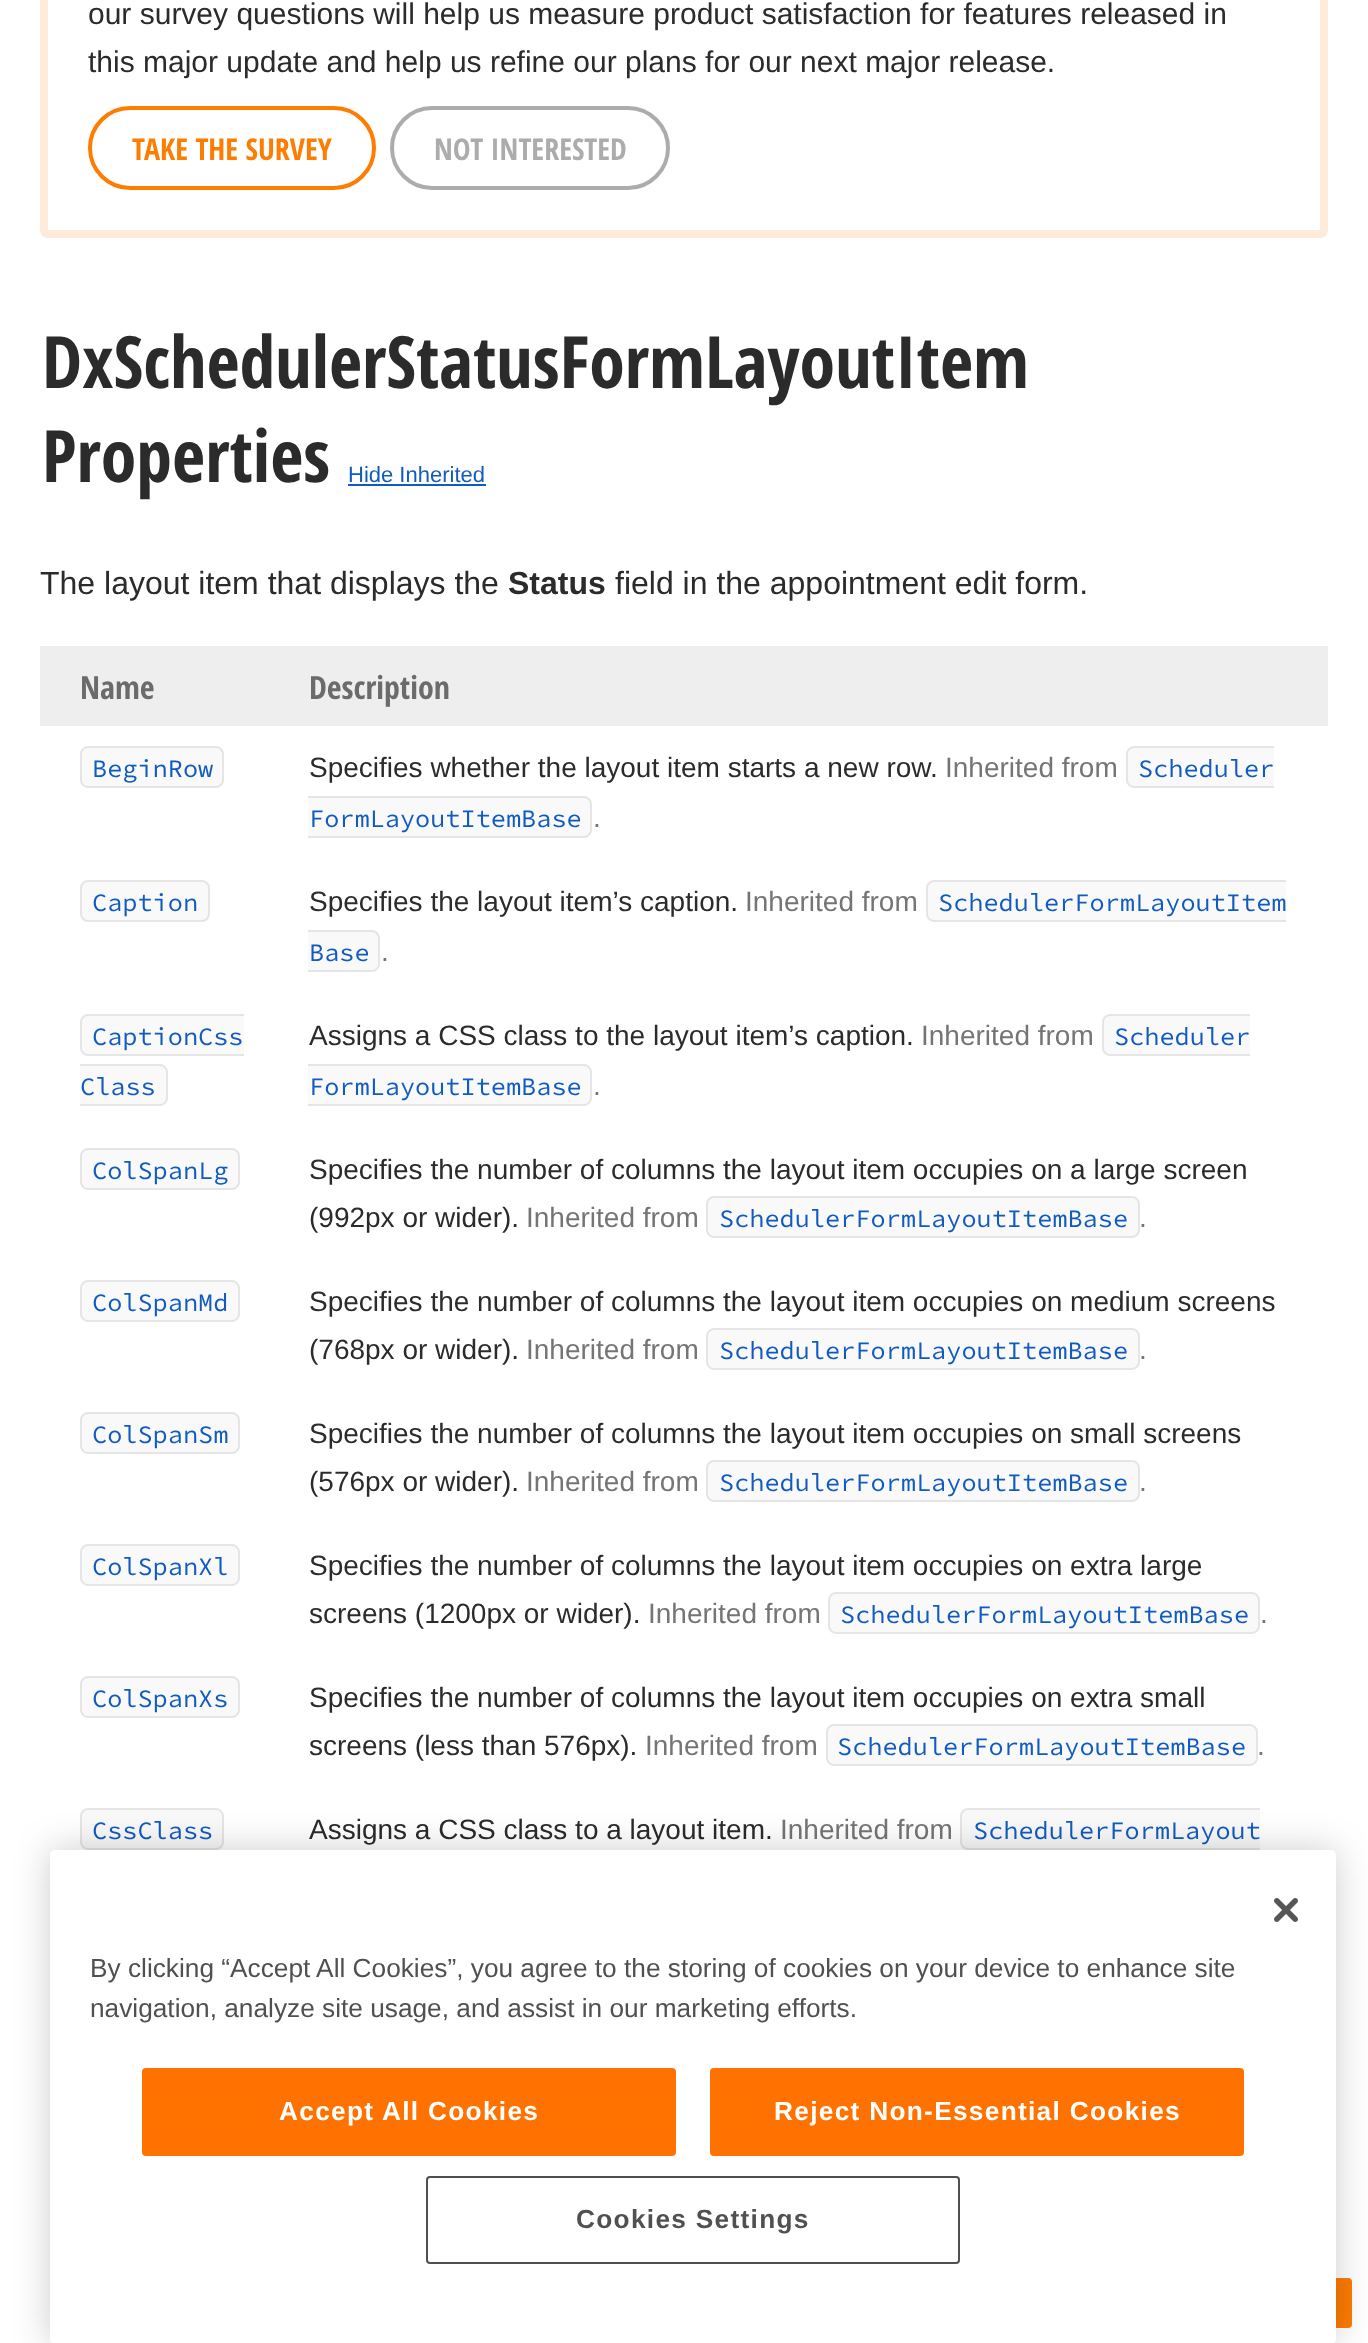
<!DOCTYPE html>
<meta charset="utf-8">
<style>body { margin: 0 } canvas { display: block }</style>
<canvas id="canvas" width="1368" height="2343"></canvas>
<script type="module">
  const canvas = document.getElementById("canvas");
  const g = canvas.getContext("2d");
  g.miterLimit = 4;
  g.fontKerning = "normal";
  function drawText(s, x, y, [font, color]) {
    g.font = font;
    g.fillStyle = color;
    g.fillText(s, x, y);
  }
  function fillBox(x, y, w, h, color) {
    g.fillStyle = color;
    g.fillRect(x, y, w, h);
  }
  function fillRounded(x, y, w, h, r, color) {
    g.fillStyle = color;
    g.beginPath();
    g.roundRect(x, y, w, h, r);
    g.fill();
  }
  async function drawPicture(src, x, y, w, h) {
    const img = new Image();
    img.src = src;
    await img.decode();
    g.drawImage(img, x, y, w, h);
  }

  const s1 = ["30px Liberation Sans", "#2B2B2B"];
  const s2 = ["bold 30px Open Sans Condensed", "#FE7C00"];
  const s3 = ["bold 30px Open Sans Condensed", "#ACACAC"];
  const s4 = ["bold 72px Open Sans Condensed", "#2B2B2B"];
  const s5 = ["22px Liberation Sans", "#115BC0"];
  const s6 = ["32px Liberation Sans", "#2B2B2B"];
  const s7 = ["bold 32px Liberation Sans", "#2B2B2B"];
  const s8 = ["bold 32px Open Sans Condensed", "#6B6B6B"];
  const s9 = ["200 25.25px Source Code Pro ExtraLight", "#115BC0"];
  const s10 = ["28px Liberation Sans", "#2B2B2B"];
  const s11 = ["28px Liberation Sans", "#757575"];
  const s12 = ["26.25px Liberation Sans", "#505050"];
  const s13 = ["bold 26.25px Liberation Sans", "#FFFFFF"];
  const s14 = ["bold 26.25px Liberation Sans", "#505050"];

  fillBox(0, 0, 1368, 2343, "#FFFFFF");
  g.beginPath();
  g.roundRect(44, -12, 1280, 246, 4);
  g.strokeStyle = "#FFEBD9";
  g.lineWidth = 8;
  g.stroke();
  drawText("our survey questions will help us measure product satisfaction for features released in", 88, 24, s1);
  drawText("this major update and help us refine our plans for our next major release.", 88, 72, s1);
  g.beginPath();
  g.roundRect(90, 108, 284, 80, 40);
  g.strokeStyle = "#FE7C00";
  g.lineWidth = 4;
  g.stroke();
  drawText("TAKE THE SURVEY", 132, 160, s2);
  g.beginPath();
  g.roundRect(392, 108, 276, 80, 40);
  g.strokeStyle = "#ACACAC";
  g.stroke();
  drawText("NOT INTERESTED", 434, 160, s3);
  drawText("DxSchedulerStatusFormLayoutItem", 42, 388, s4);
  drawText("Properties", 42, 482, s4);
  drawText("Hide Inherited", 348, 482, s5);
  fillBox(348, 484, 138, 2, "#115BC0");
  drawText("The layout item that displays the", 40, 594, s6);
  drawText("Status", 508, 594, s7);
  drawText("field in the appointment edit form.", 615, 594, s6);
  fillBox(40, 646, 1288, 80, "#EEEEEE");
  drawText("Name", 80, 699, s8);
  drawText("Description", 309, 699, s8);
  g.fillStyle = "#F9F9F9";
  g.beginPath();
  g.roundRect(80, 746, 88, 42, [8, 0, 0, 8]);
  g.fill();
  g.fillStyle = "#E5E5E5";
  g.beginPath();
  g.moveTo(88, 746);
  g.lineTo(168, 746);
  g.lineTo(168, 788);
  g.lineTo(88, 788);
  g.bezierCurveTo(84, 788, 80, 784, 80, 780);
  g.lineTo(80, 754);
  g.bezierCurveTo(80, 750, 84, 746, 88, 746);
  g.closePath();
  g.moveTo(88, 748);
  g.lineTo(168, 748);
  g.lineTo(168, 786);
  g.lineTo(88, 786);
  g.bezierCurveTo(85, 786, 82, 783, 82, 780);
  g.lineTo(82, 754);
  g.bezierCurveTo(82, 751, 85, 748, 88, 748);
  g.closePath();
  g.fill("evenodd");
  g.fillStyle = "#F9F9F9";
  g.beginPath();
  g.roundRect(168, 746, 56, 42, [0, 8, 8, 0]);
  g.fill();
  g.fillStyle = "#E5E5E5";
  g.beginPath();
  g.moveTo(168, 746);
  g.lineTo(216, 746);
  g.bezierCurveTo(220, 746, 224, 750, 224, 754);
  g.lineTo(224, 780);
  g.bezierCurveTo(224, 784, 220, 788, 216, 788);
  g.lineTo(168, 788);
  g.closePath();
  g.moveTo(168, 748);
  g.lineTo(216, 748);
  g.bezierCurveTo(219, 748, 222, 751, 222, 754);
  g.lineTo(222, 780);
  g.bezierCurveTo(222, 783, 219, 786, 216, 786);
  g.lineTo(168, 786);
  g.closePath();
  g.fill("evenodd");
  drawText("BeginRow", 92, 777, s9);
  drawText("Specifies whether the layout item starts a new row.", 309, 777, s10);
  drawText("Inherited from", 945, 777, s11);
  g.fillStyle = "#F9F9F9";
  g.beginPath();
  g.roundRect(1126, 746, 148, 42, [8, 0, 0, 8]);
  g.fill();
  g.fillStyle = "#E5E5E5";
  g.beginPath();
  g.moveTo(1134, 746);
  g.lineTo(1274, 746);
  g.lineTo(1274, 788);
  g.lineTo(1134, 788);
  g.bezierCurveTo(1130, 788, 1126, 784, 1126, 780);
  g.lineTo(1126, 754);
  g.bezierCurveTo(1126, 750, 1130, 746, 1134, 746);
  g.closePath();
  g.moveTo(1134, 748);
  g.lineTo(1274, 748);
  g.lineTo(1274, 786);
  g.lineTo(1134, 786);
  g.bezierCurveTo(1131, 786, 1128, 783, 1128, 780);
  g.lineTo(1128, 754);
  g.bezierCurveTo(1128, 751, 1131, 748, 1134, 748);
  g.closePath();
  g.fill("evenodd");
  drawText("Scheduler", 1138, 777, s9);
  fillBox(308, 798, 212, 38, "#F9F9F9");
  g.beginPath();
  g.roundRect(520, 796, 72, 42, [0, 8, 8, 0]);
  g.fill();
  g.fillStyle = "#E5E5E5";
  g.beginPath();
  g.moveTo(520, 796);
  g.lineTo(584, 796);
  g.bezierCurveTo(588, 796, 592, 800, 592, 804);
  g.lineTo(592, 830);
  g.bezierCurveTo(592, 834, 588, 838, 584, 838);
  g.lineTo(520, 838);
  g.closePath();
  g.moveTo(520, 798);
  g.lineTo(584, 798);
  g.bezierCurveTo(587, 798, 590, 801, 590, 804);
  g.lineTo(590, 830);
  g.bezierCurveTo(590, 833, 587, 836, 584, 836);
  g.lineTo(520, 836);
  g.closePath();
  g.fill("evenodd");
  drawText("FormLayoutItemBase", 309, 827, s9);
  fillBox(308, 796, 212, 2, "#E5E5E5");
  fillBox(308, 836, 212, 2, "#E5E5E5");
  drawText(".", 593, 827, s11);
  g.fillStyle = "#F9F9F9";
  g.beginPath();
  g.roundRect(81, 881, 128, 40, 7);
  g.fill();
  g.strokeStyle = "#E5E5E5";
  g.lineWidth = 2;
  g.stroke();
  drawText("Caption", 92, 911, s9);
  drawText("Specifies the layout item’s caption.", 309, 911, s10);
  drawText("Inherited from", 745, 911, s11);
  g.fillStyle = "#F9F9F9";
  g.beginPath();
  g.roundRect(926, 880, 148, 42, [8, 0, 0, 8]);
  g.fill();
  g.fillStyle = "#E5E5E5";
  g.beginPath();
  g.moveTo(934, 880);
  g.lineTo(1074, 880);
  g.lineTo(1074, 922);
  g.lineTo(934, 922);
  g.bezierCurveTo(930, 922, 926, 918, 926, 914);
  g.lineTo(926, 888);
  g.bezierCurveTo(926, 884, 930, 880, 934, 880);
  g.closePath();
  g.moveTo(934, 882);
  g.lineTo(1074, 882);
  g.lineTo(1074, 920);
  g.lineTo(934, 920);
  g.bezierCurveTo(931, 920, 928, 917, 928, 914);
  g.lineTo(928, 888);
  g.bezierCurveTo(928, 885, 931, 882, 934, 882);
  g.closePath();
  g.fill("evenodd");
  fillBox(1074, 882, 212, 38, "#F9F9F9");
  drawText("SchedulerFormLayoutItem", 938, 911, s9);
  fillBox(1074, 880, 212, 2, "#E5E5E5");
  fillBox(1074, 920, 212, 2, "#E5E5E5");
  g.fillStyle = "#F9F9F9";
  g.beginPath();
  g.roundRect(308, 930, 72, 42, [0, 8, 8, 0]);
  g.fill();
  g.fillStyle = "#E5E5E5";
  g.beginPath();
  g.moveTo(308, 930);
  g.lineTo(372, 930);
  g.bezierCurveTo(376, 930, 380, 934, 380, 938);
  g.lineTo(380, 964);
  g.bezierCurveTo(380, 968, 376, 972, 372, 972);
  g.lineTo(308, 972);
  g.closePath();
  g.moveTo(308, 932);
  g.lineTo(372, 932);
  g.bezierCurveTo(375, 932, 378, 935, 378, 938);
  g.lineTo(378, 964);
  g.bezierCurveTo(378, 967, 375, 970, 372, 970);
  g.lineTo(308, 970);
  g.closePath();
  g.fill("evenodd");
  drawText("Base", 309, 961, s9);
  drawText(".", 381, 961, s11);
  g.fillStyle = "#F9F9F9";
  g.beginPath();
  g.roundRect(80, 1014, 118, 42, [8, 0, 0, 8]);
  g.fill();
  g.fillStyle = "#E5E5E5";
  g.beginPath();
  g.moveTo(88, 1014);
  g.lineTo(198, 1014);
  g.lineTo(198, 1056);
  g.lineTo(88, 1056);
  g.bezierCurveTo(84, 1056, 80, 1052, 80, 1048);
  g.lineTo(80, 1022);
  g.bezierCurveTo(80, 1018, 84, 1014, 88, 1014);
  g.closePath();
  g.moveTo(88, 1016);
  g.lineTo(198, 1016);
  g.lineTo(198, 1054);
  g.lineTo(88, 1054);
  g.bezierCurveTo(85, 1054, 82, 1051, 82, 1048);
  g.lineTo(82, 1022);
  g.bezierCurveTo(82, 1019, 85, 1016, 88, 1016);
  g.closePath();
  g.fill("evenodd");
  fillBox(198, 1016, 46, 38, "#F9F9F9");
  drawText("CaptionCss", 92, 1045, s9);
  fillBox(198, 1014, 46, 2, "#E5E5E5");
  fillBox(198, 1054, 46, 2, "#E5E5E5");
  g.fillStyle = "#F9F9F9";
  g.beginPath();
  g.roundRect(80, 1064, 88, 42, [0, 8, 8, 0]);
  g.fill();
  g.fillStyle = "#E5E5E5";
  g.beginPath();
  g.moveTo(80, 1064);
  g.lineTo(160, 1064);
  g.bezierCurveTo(164, 1064, 168, 1068, 168, 1072);
  g.lineTo(168, 1098);
  g.bezierCurveTo(168, 1102, 164, 1106, 160, 1106);
  g.lineTo(80, 1106);
  g.closePath();
  g.moveTo(80, 1066);
  g.lineTo(160, 1066);
  g.bezierCurveTo(163, 1066, 166, 1069, 166, 1072);
  g.lineTo(166, 1098);
  g.bezierCurveTo(166, 1101, 163, 1104, 160, 1104);
  g.lineTo(80, 1104);
  g.closePath();
  g.fill("evenodd");
  drawText("Class", 80, 1095, s9);
  drawText("Assigns a CSS class to the layout item’s caption.", 309, 1045, s10);
  drawText("Inherited from", 921, 1045, s11);
  g.fillStyle = "#F9F9F9";
  g.beginPath();
  g.roundRect(1102, 1014, 148, 42, [8, 0, 0, 8]);
  g.fill();
  g.fillStyle = "#E5E5E5";
  g.beginPath();
  g.moveTo(1110, 1014);
  g.lineTo(1250, 1014);
  g.lineTo(1250, 1056);
  g.lineTo(1110, 1056);
  g.bezierCurveTo(1106, 1056, 1102, 1052, 1102, 1048);
  g.lineTo(1102, 1022);
  g.bezierCurveTo(1102, 1018, 1106, 1014, 1110, 1014);
  g.closePath();
  g.moveTo(1110, 1016);
  g.lineTo(1250, 1016);
  g.lineTo(1250, 1054);
  g.lineTo(1110, 1054);
  g.bezierCurveTo(1107, 1054, 1104, 1051, 1104, 1048);
  g.lineTo(1104, 1022);
  g.bezierCurveTo(1104, 1019, 1107, 1016, 1110, 1016);
  g.closePath();
  g.fill("evenodd");
  drawText("Scheduler", 1114, 1045, s9);
  fillBox(308, 1066, 212, 38, "#F9F9F9");
  g.beginPath();
  g.roundRect(520, 1064, 72, 42, [0, 8, 8, 0]);
  g.fill();
  g.fillStyle = "#E5E5E5";
  g.beginPath();
  g.moveTo(520, 1064);
  g.lineTo(584, 1064);
  g.bezierCurveTo(588, 1064, 592, 1068, 592, 1072);
  g.lineTo(592, 1098);
  g.bezierCurveTo(592, 1102, 588, 1106, 584, 1106);
  g.lineTo(520, 1106);
  g.closePath();
  g.moveTo(520, 1066);
  g.lineTo(584, 1066);
  g.bezierCurveTo(587, 1066, 590, 1069, 590, 1072);
  g.lineTo(590, 1098);
  g.bezierCurveTo(590, 1101, 587, 1104, 584, 1104);
  g.lineTo(520, 1104);
  g.closePath();
  g.fill("evenodd");
  drawText("FormLayoutItemBase", 309, 1095, s9);
  fillBox(308, 1064, 212, 2, "#E5E5E5");
  fillBox(308, 1104, 212, 2, "#E5E5E5");
  drawText(".", 593, 1095, s11);
  g.fillStyle = "#F9F9F9";
  g.beginPath();
  g.roundRect(80, 1148, 58, 42, [8, 0, 0, 8]);
  g.fill();
  g.fillStyle = "#E5E5E5";
  g.beginPath();
  g.moveTo(88, 1148);
  g.lineTo(138, 1148);
  g.lineTo(138, 1190);
  g.lineTo(88, 1190);
  g.bezierCurveTo(84, 1190, 80, 1186, 80, 1182);
  g.lineTo(80, 1156);
  g.bezierCurveTo(80, 1152, 84, 1148, 88, 1148);
  g.closePath();
  g.moveTo(88, 1150);
  g.lineTo(138, 1150);
  g.lineTo(138, 1188);
  g.lineTo(88, 1188);
  g.bezierCurveTo(85, 1188, 82, 1185, 82, 1182);
  g.lineTo(82, 1156);
  g.bezierCurveTo(82, 1153, 85, 1150, 88, 1150);
  g.closePath();
  g.fill("evenodd");
  fillBox(138, 1150, 60, 38, "#F9F9F9");
  g.beginPath();
  g.roundRect(198, 1148, 42, 42, [0, 8, 8, 0]);
  g.fill();
  g.fillStyle = "#E5E5E5";
  g.beginPath();
  g.moveTo(198, 1148);
  g.lineTo(232, 1148);
  g.bezierCurveTo(236, 1148, 240, 1152, 240, 1156);
  g.lineTo(240, 1182);
  g.bezierCurveTo(240, 1186, 236, 1190, 232, 1190);
  g.lineTo(198, 1190);
  g.closePath();
  g.moveTo(198, 1150);
  g.lineTo(232, 1150);
  g.bezierCurveTo(235, 1150, 238, 1153, 238, 1156);
  g.lineTo(238, 1182);
  g.bezierCurveTo(238, 1185, 235, 1188, 232, 1188);
  g.lineTo(198, 1188);
  g.closePath();
  g.fill("evenodd");
  drawText("ColSpanLg", 92, 1179, s9);
  fillBox(138, 1148, 60, 2, "#E5E5E5");
  fillBox(138, 1188, 60, 2, "#E5E5E5");
  drawText("Specifies the number of columns the layout item occupies on a large screen", 309, 1179, s10);
  drawText("(992px or wider).", 309, 1227, s10);
  drawText("Inherited from", 526, 1227, s11);
  g.fillStyle = "#F9F9F9";
  g.beginPath();
  g.roundRect(706, 1196, 148, 42, [8, 0, 0, 8]);
  g.fill();
  g.fillStyle = "#E5E5E5";
  g.beginPath();
  g.moveTo(714, 1196);
  g.lineTo(854, 1196);
  g.lineTo(854, 1238);
  g.lineTo(714, 1238);
  g.bezierCurveTo(710, 1238, 706, 1234, 706, 1230);
  g.lineTo(706, 1204);
  g.bezierCurveTo(706, 1200, 710, 1196, 714, 1196);
  g.closePath();
  g.moveTo(714, 1198);
  g.lineTo(854, 1198);
  g.lineTo(854, 1236);
  g.lineTo(714, 1236);
  g.bezierCurveTo(711, 1236, 708, 1233, 708, 1230);
  g.lineTo(708, 1204);
  g.bezierCurveTo(708, 1201, 711, 1198, 714, 1198);
  g.closePath();
  g.fill("evenodd");
  fillBox(854, 1198, 212, 38, "#F9F9F9");
  g.beginPath();
  g.roundRect(1066, 1196, 74, 42, [0, 8, 8, 0]);
  g.fill();
  g.fillStyle = "#E5E5E5";
  g.beginPath();
  g.moveTo(1066, 1196);
  g.lineTo(1132, 1196);
  g.bezierCurveTo(1136, 1196, 1140, 1200, 1140, 1204);
  g.lineTo(1140, 1230);
  g.bezierCurveTo(1140, 1234, 1136, 1238, 1132, 1238);
  g.lineTo(1066, 1238);
  g.closePath();
  g.moveTo(1066, 1198);
  g.lineTo(1132, 1198);
  g.bezierCurveTo(1135, 1198, 1138, 1201, 1138, 1204);
  g.lineTo(1138, 1230);
  g.bezierCurveTo(1138, 1233, 1135, 1236, 1132, 1236);
  g.lineTo(1066, 1236);
  g.closePath();
  g.fill("evenodd");
  drawText("SchedulerFormLayoutItemBase", 719, 1227, s9);
  fillBox(854, 1196, 212, 2, "#E5E5E5");
  fillBox(854, 1236, 212, 2, "#E5E5E5");
  drawText(".", 1139, 1227, s11);
  g.fillStyle = "#F9F9F9";
  g.beginPath();
  g.roundRect(80, 1280, 58, 42, [8, 0, 0, 8]);
  g.fill();
  g.fillStyle = "#E5E5E5";
  g.beginPath();
  g.moveTo(88, 1280);
  g.lineTo(138, 1280);
  g.lineTo(138, 1322);
  g.lineTo(88, 1322);
  g.bezierCurveTo(84, 1322, 80, 1318, 80, 1314);
  g.lineTo(80, 1288);
  g.bezierCurveTo(80, 1284, 84, 1280, 88, 1280);
  g.closePath();
  g.moveTo(88, 1282);
  g.lineTo(138, 1282);
  g.lineTo(138, 1320);
  g.lineTo(88, 1320);
  g.bezierCurveTo(85, 1320, 82, 1317, 82, 1314);
  g.lineTo(82, 1288);
  g.bezierCurveTo(82, 1285, 85, 1282, 88, 1282);
  g.closePath();
  g.fill("evenodd");
  fillBox(138, 1282, 60, 38, "#F9F9F9");
  g.beginPath();
  g.roundRect(198, 1280, 42, 42, [0, 8, 8, 0]);
  g.fill();
  g.fillStyle = "#E5E5E5";
  g.beginPath();
  g.moveTo(198, 1280);
  g.lineTo(232, 1280);
  g.bezierCurveTo(236, 1280, 240, 1284, 240, 1288);
  g.lineTo(240, 1314);
  g.bezierCurveTo(240, 1318, 236, 1322, 232, 1322);
  g.lineTo(198, 1322);
  g.closePath();
  g.moveTo(198, 1282);
  g.lineTo(232, 1282);
  g.bezierCurveTo(235, 1282, 238, 1285, 238, 1288);
  g.lineTo(238, 1314);
  g.bezierCurveTo(238, 1317, 235, 1320, 232, 1320);
  g.lineTo(198, 1320);
  g.closePath();
  g.fill("evenodd");
  drawText("ColSpanMd", 92, 1311, s9);
  fillBox(138, 1280, 60, 2, "#E5E5E5");
  fillBox(138, 1320, 60, 2, "#E5E5E5");
  drawText("Specifies the number of columns the layout item occupies on medium screens", 309, 1311, s10);
  drawText("(768px or wider).", 309, 1359, s10);
  drawText("Inherited from", 526, 1359, s11);
  g.fillStyle = "#F9F9F9";
  g.beginPath();
  g.roundRect(706, 1328, 148, 42, [8, 0, 0, 8]);
  g.fill();
  g.fillStyle = "#E5E5E5";
  g.beginPath();
  g.moveTo(714, 1328);
  g.lineTo(854, 1328);
  g.lineTo(854, 1370);
  g.lineTo(714, 1370);
  g.bezierCurveTo(710, 1370, 706, 1366, 706, 1362);
  g.lineTo(706, 1336);
  g.bezierCurveTo(706, 1332, 710, 1328, 714, 1328);
  g.closePath();
  g.moveTo(714, 1330);
  g.lineTo(854, 1330);
  g.lineTo(854, 1368);
  g.lineTo(714, 1368);
  g.bezierCurveTo(711, 1368, 708, 1365, 708, 1362);
  g.lineTo(708, 1336);
  g.bezierCurveTo(708, 1333, 711, 1330, 714, 1330);
  g.closePath();
  g.fill("evenodd");
  fillBox(854, 1330, 212, 38, "#F9F9F9");
  g.beginPath();
  g.roundRect(1066, 1328, 74, 42, [0, 8, 8, 0]);
  g.fill();
  g.fillStyle = "#E5E5E5";
  g.beginPath();
  g.moveTo(1066, 1328);
  g.lineTo(1132, 1328);
  g.bezierCurveTo(1136, 1328, 1140, 1332, 1140, 1336);
  g.lineTo(1140, 1362);
  g.bezierCurveTo(1140, 1366, 1136, 1370, 1132, 1370);
  g.lineTo(1066, 1370);
  g.closePath();
  g.moveTo(1066, 1330);
  g.lineTo(1132, 1330);
  g.bezierCurveTo(1135, 1330, 1138, 1333, 1138, 1336);
  g.lineTo(1138, 1362);
  g.bezierCurveTo(1138, 1365, 1135, 1368, 1132, 1368);
  g.lineTo(1066, 1368);
  g.closePath();
  g.fill("evenodd");
  drawText("SchedulerFormLayoutItemBase", 719, 1359, s9);
  fillBox(854, 1328, 212, 2, "#E5E5E5");
  fillBox(854, 1368, 212, 2, "#E5E5E5");
  drawText(".", 1139, 1359, s11);
  g.fillStyle = "#F9F9F9";
  g.beginPath();
  g.roundRect(80, 1412, 58, 42, [8, 0, 0, 8]);
  g.fill();
  g.fillStyle = "#E5E5E5";
  g.beginPath();
  g.moveTo(88, 1412);
  g.lineTo(138, 1412);
  g.lineTo(138, 1454);
  g.lineTo(88, 1454);
  g.bezierCurveTo(84, 1454, 80, 1450, 80, 1446);
  g.lineTo(80, 1420);
  g.bezierCurveTo(80, 1416, 84, 1412, 88, 1412);
  g.closePath();
  g.moveTo(88, 1414);
  g.lineTo(138, 1414);
  g.lineTo(138, 1452);
  g.lineTo(88, 1452);
  g.bezierCurveTo(85, 1452, 82, 1449, 82, 1446);
  g.lineTo(82, 1420);
  g.bezierCurveTo(82, 1417, 85, 1414, 88, 1414);
  g.closePath();
  g.fill("evenodd");
  fillBox(138, 1414, 60, 38, "#F9F9F9");
  g.beginPath();
  g.roundRect(198, 1412, 42, 42, [0, 8, 8, 0]);
  g.fill();
  g.fillStyle = "#E5E5E5";
  g.beginPath();
  g.moveTo(198, 1412);
  g.lineTo(232, 1412);
  g.bezierCurveTo(236, 1412, 240, 1416, 240, 1420);
  g.lineTo(240, 1446);
  g.bezierCurveTo(240, 1450, 236, 1454, 232, 1454);
  g.lineTo(198, 1454);
  g.closePath();
  g.moveTo(198, 1414);
  g.lineTo(232, 1414);
  g.bezierCurveTo(235, 1414, 238, 1417, 238, 1420);
  g.lineTo(238, 1446);
  g.bezierCurveTo(238, 1449, 235, 1452, 232, 1452);
  g.lineTo(198, 1452);
  g.closePath();
  g.fill("evenodd");
  drawText("ColSpanSm", 92, 1443, s9);
  fillBox(138, 1412, 60, 2, "#E5E5E5");
  fillBox(138, 1452, 60, 2, "#E5E5E5");
  drawText("Specifies the number of columns the layout item occupies on small screens", 309, 1443, s10);
  drawText("(576px or wider).", 309, 1491, s10);
  drawText("Inherited from", 526, 1491, s11);
  g.fillStyle = "#F9F9F9";
  g.beginPath();
  g.roundRect(706, 1460, 148, 42, [8, 0, 0, 8]);
  g.fill();
  g.fillStyle = "#E5E5E5";
  g.beginPath();
  g.moveTo(714, 1460);
  g.lineTo(854, 1460);
  g.lineTo(854, 1502);
  g.lineTo(714, 1502);
  g.bezierCurveTo(710, 1502, 706, 1498, 706, 1494);
  g.lineTo(706, 1468);
  g.bezierCurveTo(706, 1464, 710, 1460, 714, 1460);
  g.closePath();
  g.moveTo(714, 1462);
  g.lineTo(854, 1462);
  g.lineTo(854, 1500);
  g.lineTo(714, 1500);
  g.bezierCurveTo(711, 1500, 708, 1497, 708, 1494);
  g.lineTo(708, 1468);
  g.bezierCurveTo(708, 1465, 711, 1462, 714, 1462);
  g.closePath();
  g.fill("evenodd");
  fillBox(854, 1462, 212, 38, "#F9F9F9");
  g.beginPath();
  g.roundRect(1066, 1460, 74, 42, [0, 8, 8, 0]);
  g.fill();
  g.fillStyle = "#E5E5E5";
  g.beginPath();
  g.moveTo(1066, 1460);
  g.lineTo(1132, 1460);
  g.bezierCurveTo(1136, 1460, 1140, 1464, 1140, 1468);
  g.lineTo(1140, 1494);
  g.bezierCurveTo(1140, 1498, 1136, 1502, 1132, 1502);
  g.lineTo(1066, 1502);
  g.closePath();
  g.moveTo(1066, 1462);
  g.lineTo(1132, 1462);
  g.bezierCurveTo(1135, 1462, 1138, 1465, 1138, 1468);
  g.lineTo(1138, 1494);
  g.bezierCurveTo(1138, 1497, 1135, 1500, 1132, 1500);
  g.lineTo(1066, 1500);
  g.closePath();
  g.fill("evenodd");
  drawText("SchedulerFormLayoutItemBase", 719, 1491, s9);
  fillBox(854, 1460, 212, 2, "#E5E5E5");
  fillBox(854, 1500, 212, 2, "#E5E5E5");
  drawText(".", 1139, 1491, s11);
  g.fillStyle = "#F9F9F9";
  g.beginPath();
  g.roundRect(80, 1544, 58, 42, [8, 0, 0, 8]);
  g.fill();
  g.fillStyle = "#E5E5E5";
  g.beginPath();
  g.moveTo(88, 1544);
  g.lineTo(138, 1544);
  g.lineTo(138, 1586);
  g.lineTo(88, 1586);
  g.bezierCurveTo(84, 1586, 80, 1582, 80, 1578);
  g.lineTo(80, 1552);
  g.bezierCurveTo(80, 1548, 84, 1544, 88, 1544);
  g.closePath();
  g.moveTo(88, 1546);
  g.lineTo(138, 1546);
  g.lineTo(138, 1584);
  g.lineTo(88, 1584);
  g.bezierCurveTo(85, 1584, 82, 1581, 82, 1578);
  g.lineTo(82, 1552);
  g.bezierCurveTo(82, 1549, 85, 1546, 88, 1546);
  g.closePath();
  g.fill("evenodd");
  fillBox(138, 1546, 60, 38, "#F9F9F9");
  g.beginPath();
  g.roundRect(198, 1544, 42, 42, [0, 8, 8, 0]);
  g.fill();
  g.fillStyle = "#E5E5E5";
  g.beginPath();
  g.moveTo(198, 1544);
  g.lineTo(232, 1544);
  g.bezierCurveTo(236, 1544, 240, 1548, 240, 1552);
  g.lineTo(240, 1578);
  g.bezierCurveTo(240, 1582, 236, 1586, 232, 1586);
  g.lineTo(198, 1586);
  g.closePath();
  g.moveTo(198, 1546);
  g.lineTo(232, 1546);
  g.bezierCurveTo(235, 1546, 238, 1549, 238, 1552);
  g.lineTo(238, 1578);
  g.bezierCurveTo(238, 1581, 235, 1584, 232, 1584);
  g.lineTo(198, 1584);
  g.closePath();
  g.fill("evenodd");
  drawText("ColSpanXl", 92, 1575, s9);
  fillBox(138, 1544, 60, 2, "#E5E5E5");
  fillBox(138, 1584, 60, 2, "#E5E5E5");
  drawText("Specifies the number of columns the layout item occupies on extra large", 309, 1575, s10);
  drawText("screens (1200px or wider).", 309, 1623, s10);
  drawText("Inherited from", 648, 1623, s11);
  g.fillStyle = "#F9F9F9";
  g.beginPath();
  g.roundRect(828, 1592, 148, 42, [8, 0, 0, 8]);
  g.fill();
  g.fillStyle = "#E5E5E5";
  g.beginPath();
  g.moveTo(836, 1592);
  g.lineTo(976, 1592);
  g.lineTo(976, 1634);
  g.lineTo(836, 1634);
  g.bezierCurveTo(832, 1634, 828, 1630, 828, 1626);
  g.lineTo(828, 1600);
  g.bezierCurveTo(828, 1596, 832, 1592, 836, 1592);
  g.closePath();
  g.moveTo(836, 1594);
  g.lineTo(976, 1594);
  g.lineTo(976, 1632);
  g.lineTo(836, 1632);
  g.bezierCurveTo(833, 1632, 830, 1629, 830, 1626);
  g.lineTo(830, 1600);
  g.bezierCurveTo(830, 1597, 833, 1594, 836, 1594);
  g.closePath();
  g.fill("evenodd");
  fillBox(976, 1594, 212, 38, "#F9F9F9");
  g.beginPath();
  g.roundRect(1188, 1592, 72, 42, [0, 8, 8, 0]);
  g.fill();
  g.fillStyle = "#E5E5E5";
  g.beginPath();
  g.moveTo(1188, 1592);
  g.lineTo(1252, 1592);
  g.bezierCurveTo(1256, 1592, 1260, 1596, 1260, 1600);
  g.lineTo(1260, 1626);
  g.bezierCurveTo(1260, 1630, 1256, 1634, 1252, 1634);
  g.lineTo(1188, 1634);
  g.closePath();
  g.moveTo(1188, 1594);
  g.lineTo(1252, 1594);
  g.bezierCurveTo(1255, 1594, 1258, 1597, 1258, 1600);
  g.lineTo(1258, 1626);
  g.bezierCurveTo(1258, 1629, 1255, 1632, 1252, 1632);
  g.lineTo(1188, 1632);
  g.closePath();
  g.fill("evenodd");
  drawText("SchedulerFormLayoutItemBase", 840, 1623, s9);
  fillBox(976, 1592, 212, 2, "#E5E5E5");
  fillBox(976, 1632, 212, 2, "#E5E5E5");
  drawText(".", 1260, 1623, s11);
  g.fillStyle = "#F9F9F9";
  g.beginPath();
  g.roundRect(80, 1676, 58, 42, [8, 0, 0, 8]);
  g.fill();
  g.fillStyle = "#E5E5E5";
  g.beginPath();
  g.moveTo(88, 1676);
  g.lineTo(138, 1676);
  g.lineTo(138, 1718);
  g.lineTo(88, 1718);
  g.bezierCurveTo(84, 1718, 80, 1714, 80, 1710);
  g.lineTo(80, 1684);
  g.bezierCurveTo(80, 1680, 84, 1676, 88, 1676);
  g.closePath();
  g.moveTo(88, 1678);
  g.lineTo(138, 1678);
  g.lineTo(138, 1716);
  g.lineTo(88, 1716);
  g.bezierCurveTo(85, 1716, 82, 1713, 82, 1710);
  g.lineTo(82, 1684);
  g.bezierCurveTo(82, 1681, 85, 1678, 88, 1678);
  g.closePath();
  g.fill("evenodd");
  fillBox(138, 1678, 60, 38, "#F9F9F9");
  g.beginPath();
  g.roundRect(198, 1676, 42, 42, [0, 8, 8, 0]);
  g.fill();
  g.fillStyle = "#E5E5E5";
  g.beginPath();
  g.moveTo(198, 1676);
  g.lineTo(232, 1676);
  g.bezierCurveTo(236, 1676, 240, 1680, 240, 1684);
  g.lineTo(240, 1710);
  g.bezierCurveTo(240, 1714, 236, 1718, 232, 1718);
  g.lineTo(198, 1718);
  g.closePath();
  g.moveTo(198, 1678);
  g.lineTo(232, 1678);
  g.bezierCurveTo(235, 1678, 238, 1681, 238, 1684);
  g.lineTo(238, 1710);
  g.bezierCurveTo(238, 1713, 235, 1716, 232, 1716);
  g.lineTo(198, 1716);
  g.closePath();
  g.fill("evenodd");
  drawText("ColSpanXs", 92, 1707, s9);
  fillBox(138, 1676, 60, 2, "#E5E5E5");
  fillBox(138, 1716, 60, 2, "#E5E5E5");
  drawText("Specifies the number of columns the layout item occupies on extra small", 309, 1707, s10);
  drawText("screens (less than 576px).", 309, 1755, s10);
  drawText("Inherited from", 645, 1755, s11);
  g.fillStyle = "#F9F9F9";
  g.beginPath();
  g.roundRect(826, 1724, 148, 42, [8, 0, 0, 8]);
  g.fill();
  g.fillStyle = "#E5E5E5";
  g.beginPath();
  g.moveTo(834, 1724);
  g.lineTo(974, 1724);
  g.lineTo(974, 1766);
  g.lineTo(834, 1766);
  g.bezierCurveTo(830, 1766, 826, 1762, 826, 1758);
  g.lineTo(826, 1732);
  g.bezierCurveTo(826, 1728, 830, 1724, 834, 1724);
  g.closePath();
  g.moveTo(834, 1726);
  g.lineTo(974, 1726);
  g.lineTo(974, 1764);
  g.lineTo(834, 1764);
  g.bezierCurveTo(831, 1764, 828, 1761, 828, 1758);
  g.lineTo(828, 1732);
  g.bezierCurveTo(828, 1729, 831, 1726, 834, 1726);
  g.closePath();
  g.fill("evenodd");
  fillBox(974, 1726, 210, 38, "#F9F9F9");
  g.beginPath();
  g.roundRect(1184, 1724, 74, 42, [0, 8, 8, 0]);
  g.fill();
  g.fillStyle = "#E5E5E5";
  g.beginPath();
  g.moveTo(1184, 1724);
  g.lineTo(1250, 1724);
  g.bezierCurveTo(1254, 1724, 1258, 1728, 1258, 1732);
  g.lineTo(1258, 1758);
  g.bezierCurveTo(1258, 1762, 1254, 1766, 1250, 1766);
  g.lineTo(1184, 1766);
  g.closePath();
  g.moveTo(1184, 1726);
  g.lineTo(1250, 1726);
  g.bezierCurveTo(1253, 1726, 1256, 1729, 1256, 1732);
  g.lineTo(1256, 1758);
  g.bezierCurveTo(1256, 1761, 1253, 1764, 1250, 1764);
  g.lineTo(1184, 1764);
  g.closePath();
  g.fill("evenodd");
  drawText("SchedulerFormLayoutItemBase", 837, 1755, s9);
  fillBox(974, 1724, 210, 2, "#E5E5E5");
  fillBox(974, 1764, 210, 2, "#E5E5E5");
  drawText(".", 1257, 1755, s11);
  g.fillStyle = "#F9F9F9";
  g.beginPath();
  g.roundRect(80, 1808, 58, 42, [8, 0, 0, 8]);
  g.fill();
  g.fillStyle = "#E5E5E5";
  g.beginPath();
  g.moveTo(88, 1808);
  g.lineTo(138, 1808);
  g.lineTo(138, 1850);
  g.lineTo(88, 1850);
  g.bezierCurveTo(84, 1850, 80, 1846, 80, 1842);
  g.lineTo(80, 1816);
  g.bezierCurveTo(80, 1812, 84, 1808, 88, 1808);
  g.closePath();
  g.moveTo(88, 1810);
  g.lineTo(138, 1810);
  g.lineTo(138, 1848);
  g.lineTo(88, 1848);
  g.bezierCurveTo(85, 1848, 82, 1845, 82, 1842);
  g.lineTo(82, 1816);
  g.bezierCurveTo(82, 1813, 85, 1810, 88, 1810);
  g.closePath();
  g.fill("evenodd");
  g.fillStyle = "#F9F9F9";
  g.beginPath();
  g.roundRect(138, 1808, 86, 42, [0, 8, 8, 0]);
  g.fill();
  g.fillStyle = "#E5E5E5";
  g.beginPath();
  g.moveTo(138, 1808);
  g.lineTo(216, 1808);
  g.bezierCurveTo(220, 1808, 224, 1812, 224, 1816);
  g.lineTo(224, 1842);
  g.bezierCurveTo(224, 1846, 220, 1850, 216, 1850);
  g.lineTo(138, 1850);
  g.closePath();
  g.moveTo(138, 1810);
  g.lineTo(216, 1810);
  g.bezierCurveTo(219, 1810, 222, 1813, 222, 1816);
  g.lineTo(222, 1842);
  g.bezierCurveTo(222, 1845, 219, 1848, 216, 1848);
  g.lineTo(138, 1848);
  g.closePath();
  g.fill("evenodd");
  drawText("CssClass", 92, 1839, s9);
  drawText("Assigns a CSS class to a layout item.", 309, 1839, s10);
  drawText("Inherited from", 780, 1839, s11);
  g.fillStyle = "#F9F9F9";
  g.beginPath();
  g.roundRect(960, 1808, 148, 42, [8, 0, 0, 8]);
  g.fill();
  g.fillStyle = "#E5E5E5";
  g.beginPath();
  g.moveTo(968, 1808);
  g.lineTo(1108, 1808);
  g.lineTo(1108, 1850);
  g.lineTo(968, 1850);
  g.bezierCurveTo(964, 1850, 960, 1846, 960, 1842);
  g.lineTo(960, 1816);
  g.bezierCurveTo(960, 1812, 964, 1808, 968, 1808);
  g.closePath();
  g.moveTo(968, 1810);
  g.lineTo(1108, 1810);
  g.lineTo(1108, 1848);
  g.lineTo(968, 1848);
  g.bezierCurveTo(965, 1848, 962, 1845, 962, 1842);
  g.lineTo(962, 1816);
  g.bezierCurveTo(962, 1813, 965, 1810, 968, 1810);
  g.closePath();
  g.fill("evenodd");
  fillBox(1108, 1810, 152, 38, "#F9F9F9");
  drawText("SchedulerFormLayout", 973, 1839, s9);
  fillBox(1108, 1808, 152, 2, "#E5E5E5");
  fillBox(1108, 1848, 152, 2, "#E5E5E5");
  g.fillStyle = "#FE7C00";
  g.beginPath();
  g.roundRect(1209, 2279, 142, 48, 3);
  g.fill();
  g.strokeStyle = "#FE7C00";
  g.stroke();
  g.fillStyle = "rgba(0, 0, 0, 0.2)";
  g.filter = "blur(18px)";
  g.beginPath();
  g.roundRect(50, 1850, 1286, 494, 5);
  g.fill();
  g.filter = "none";
  fillRounded(50, 1850, 1286, 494, 5, "#FFFFFF");
  await drawPicture("pic1.png", 1274, 1898, 24, 24);
  drawText("By clicking “Accept All Cookies”, you agree to the storing of cookies on your device to enhance site", 90, 1977, s12);
  drawText("navigation, analyze site usage, and assist in our marketing efforts.", 90, 2017, s12);
  g.fillStyle = "#FF7200";
  g.beginPath();
  g.roundRect(143, 2069, 532, 86, 3);
  g.fill();
  g.strokeStyle = "#FF7200";
  g.stroke();
  g.letterSpacing = "1.3px";
  drawText("Accept All Cookies", 279, 2120, s13);
  g.fillStyle = "#FF7200";
  g.beginPath();
  g.roundRect(711, 2069, 532, 86, 3);
  g.fill();
  g.stroke();
  drawText("Reject Non-Essential Cookies", 774, 2120, s13);
  g.beginPath();
  g.roundRect(427, 2177, 532, 86, 3);
  g.strokeStyle = "#505050";
  g.stroke();
  drawText("Cookies Settings", 576, 2228, s14);
</script>
